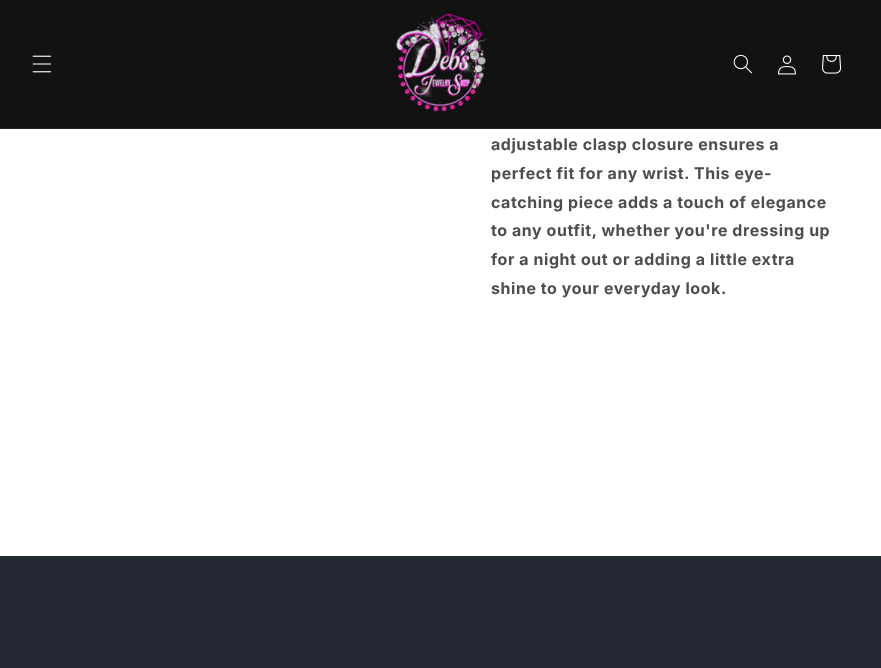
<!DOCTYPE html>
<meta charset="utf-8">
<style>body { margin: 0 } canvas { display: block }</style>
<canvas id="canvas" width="881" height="668"></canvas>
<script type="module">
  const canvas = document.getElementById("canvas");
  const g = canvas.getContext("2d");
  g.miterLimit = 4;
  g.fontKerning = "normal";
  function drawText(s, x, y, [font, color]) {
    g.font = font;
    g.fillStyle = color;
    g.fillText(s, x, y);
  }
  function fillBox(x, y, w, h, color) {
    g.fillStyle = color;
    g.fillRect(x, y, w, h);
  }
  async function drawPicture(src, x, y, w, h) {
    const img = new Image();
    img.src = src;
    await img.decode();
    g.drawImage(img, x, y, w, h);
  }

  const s1 = ["bold 16px Inter", "#4D4D4D"];

  fillBox(0, 0, 881, 668, "#FFFFFF");
  fillBox(0, 0, 881, 128, "#121212");
  fillBox(0, 128, 881, 1, "#252525");
  await drawPicture("pic1.png", 32, 55, 20, 18);
  await drawPicture("pic2.png", 396, 13, 93, 99);
  await drawPicture("pic3.png", 733, 54, 19, 20);
  await drawPicture("pic4.png", 778, 55, 18, 20);
  await drawPicture("pic5.png", 822, 55, 20, 19);
  g.letterSpacing = "0.6px";
  drawText("adjustable clasp closure ensures a", 491, 150, s1);
  drawText("perfect fit for any wrist. This eye-", 491, 179, s1);
  drawText("catching piece adds a touch of elegance", 491, 208, s1);
  drawText("to any outfit, whether you're dressing up", 491, 236, s1);
  drawText("for a night out or adding a little extra", 491, 265, s1);
  drawText("shine to your everyday look.", 491, 294, s1);
  fillBox(0, 556, 881, 112, "#242833");
</script>
